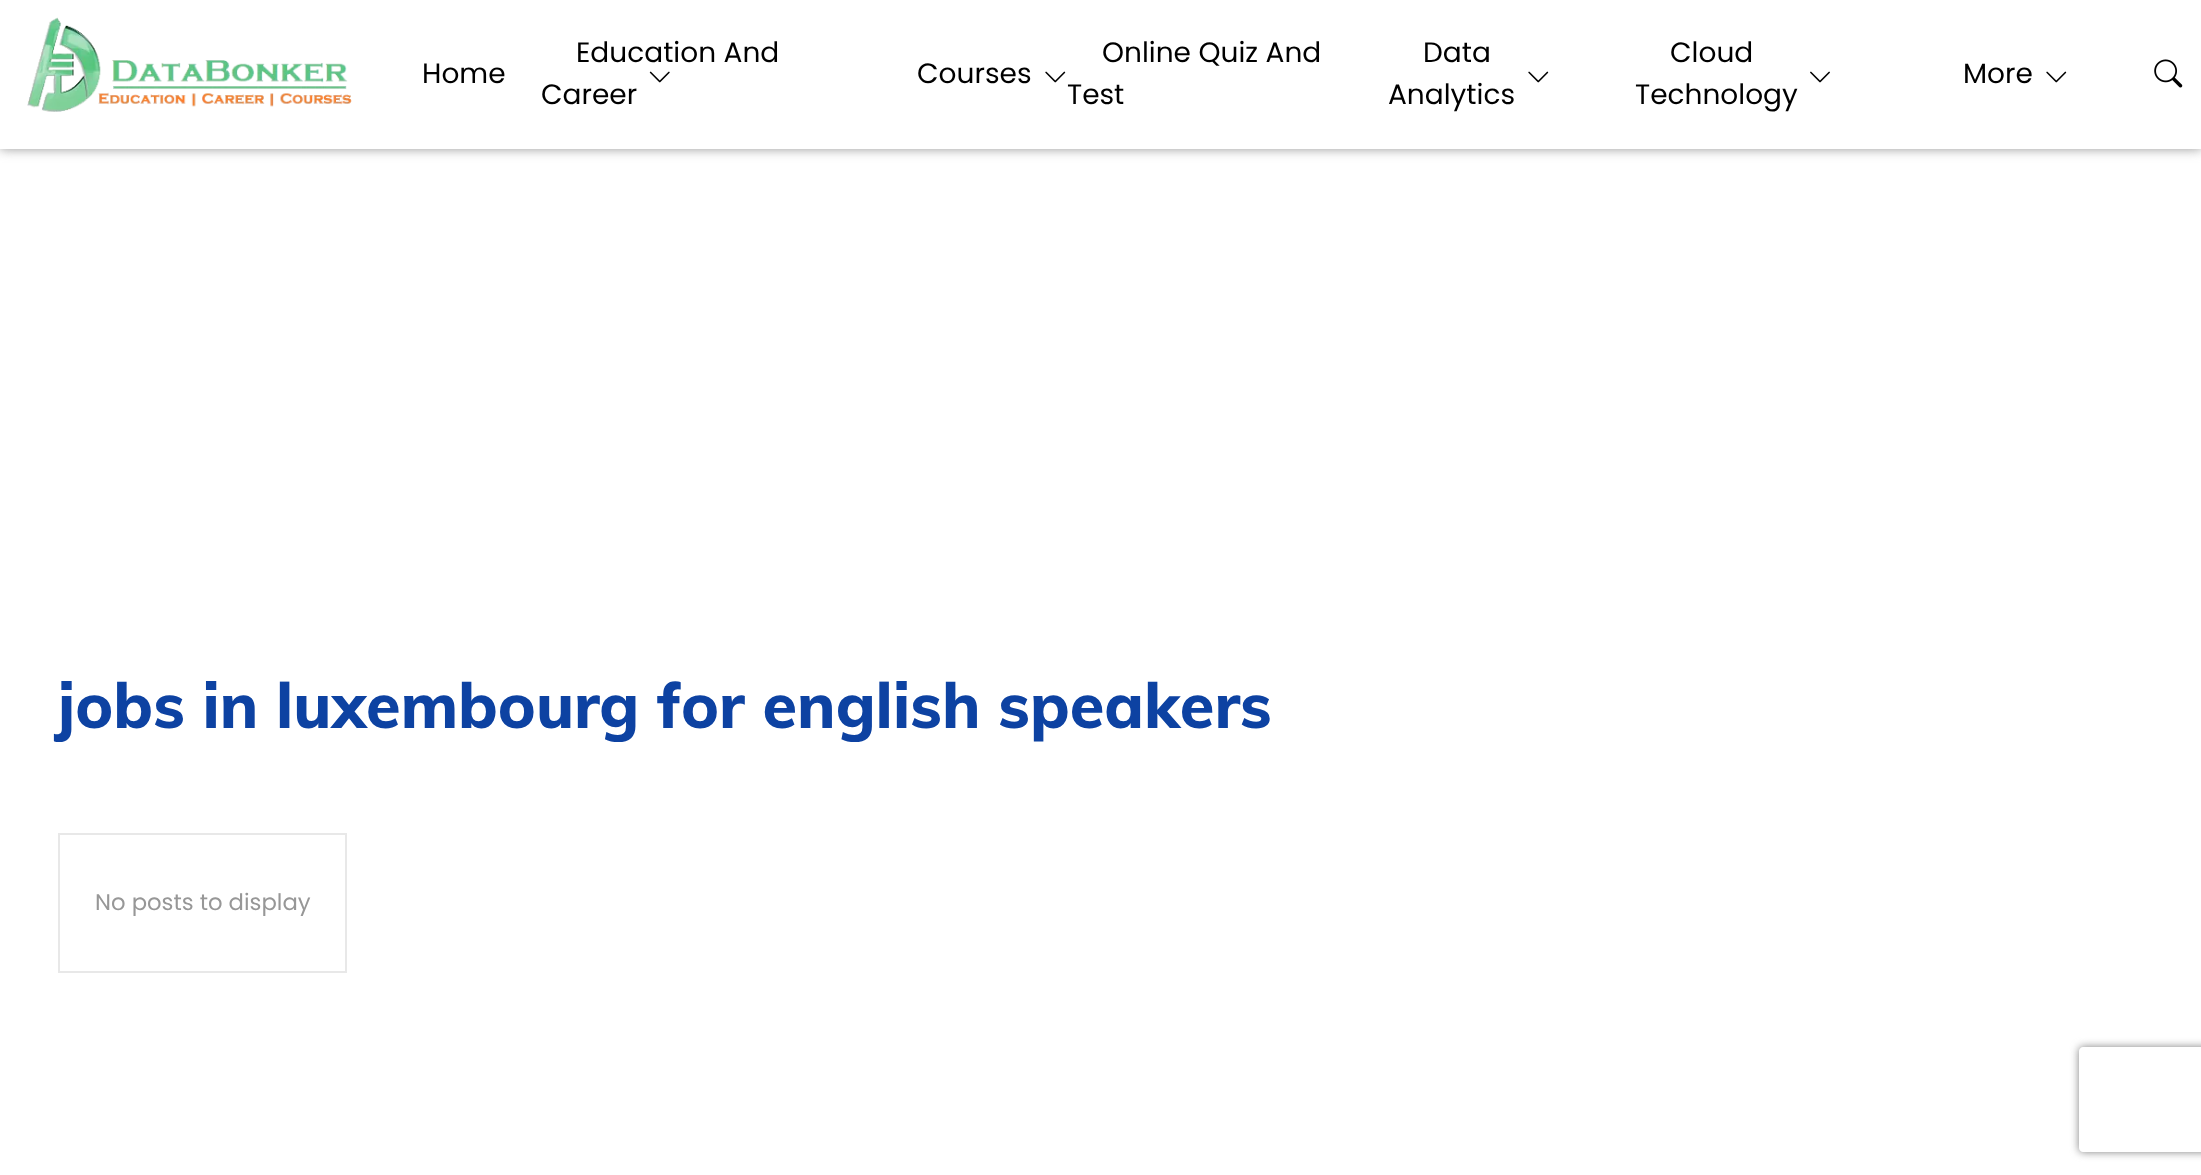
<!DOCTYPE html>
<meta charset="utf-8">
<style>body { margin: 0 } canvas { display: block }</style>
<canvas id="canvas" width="2201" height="1175"></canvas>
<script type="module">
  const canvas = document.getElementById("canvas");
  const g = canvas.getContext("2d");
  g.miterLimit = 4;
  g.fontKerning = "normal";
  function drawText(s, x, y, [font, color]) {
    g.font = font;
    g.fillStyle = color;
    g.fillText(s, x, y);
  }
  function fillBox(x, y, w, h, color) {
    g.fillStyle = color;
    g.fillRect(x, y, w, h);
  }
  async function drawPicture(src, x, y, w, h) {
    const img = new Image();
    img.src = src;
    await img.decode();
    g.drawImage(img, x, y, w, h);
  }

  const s1 = ["28px Poppins", "#000000"];
  const s2 = ["800 63px Muli", "#0D42A2"];
  const s3 = ["22.75px Poppins", "#979797"];

  fillBox(0, 0, 2201, 1175, "#FFFFFF");
  g.fillStyle = "#979797";
  g.filter = "blur(6px)";
  g.beginPath();
  g.rect(0, 0, 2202, 149);
  g.fill();
  g.filter = "none";
  fillBox(0, 0, 2201, 149, "#FFFFFF");
  await drawPicture("pic1.png", 27, 17, 325, 95);
  drawText("Home", 422, 83, s1);
  drawText("Education And", 576, 62, s1);
  await drawPicture("pic2.png", 649, 71, 21, 12);
  drawText("Career", 541, 104, s1);
  drawText("Courses", 917, 83, s1);
  await drawPicture("pic3.png", 1045, 71, 21, 12);
  drawText("Online Quiz And", 1102, 62, s1);
  drawText("Test", 1067, 104, s1);
  drawText("Data", 1423, 62, s1);
  await drawPicture("pic3.png", 1528, 71, 21, 12);
  drawText("Analytics", 1388, 104, s1);
  drawText("Cloud", 1670, 62, s1);
  await drawPicture("pic4.png", 1810, 71, 20, 12);
  drawText("Technology", 1635, 104, s1);
  drawText("More", 1963, 83, s1);
  await drawPicture("pic3.png", 2046, 71, 21, 12);
  await drawPicture("pic5.png", 2154, 59, 29, 29);
  drawText("jobs in luxembourg for english speakers", 58, 728, s2);
  g.strokeStyle = "#E8E8E8";
  g.lineWidth = 2;
  g.strokeRect(59, 834, 287, 138);
  drawText("No posts to display", 95, 910, s3);
  g.save();
  g.beginPath();
  g.moveTo(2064, 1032);
  g.lineTo(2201, 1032);
  g.lineTo(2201, 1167);
  g.lineTo(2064, 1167);
  g.closePath();
  g.moveTo(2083, 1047);
  g.lineTo(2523, 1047);
  g.bezierCurveTo(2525, 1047, 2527, 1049, 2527, 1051);
  g.lineTo(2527, 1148);
  g.bezierCurveTo(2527, 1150, 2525, 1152, 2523, 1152);
  g.lineTo(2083, 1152);
  g.bezierCurveTo(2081, 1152, 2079, 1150, 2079, 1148);
  g.lineTo(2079, 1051);
  g.bezierCurveTo(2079, 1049, 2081, 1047, 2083, 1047);
  g.closePath();
  g.clip("evenodd");
  g.fillStyle = "#808080";
  g.filter = "blur(4.5px)";
  g.beginPath();
  g.roundRect(2079, 1047, 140, 105, 4);
  g.fill();
  g.filter = "none";
  g.restore();
</script>
